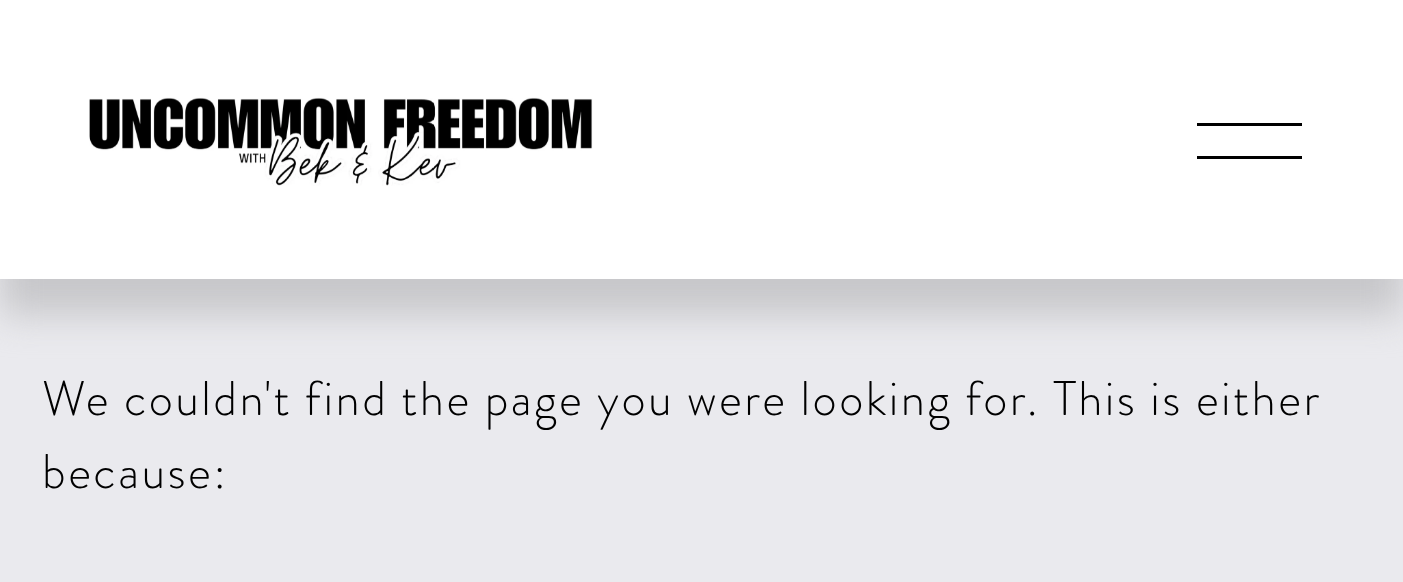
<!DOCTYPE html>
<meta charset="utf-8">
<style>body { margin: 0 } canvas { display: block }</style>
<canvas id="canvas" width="1403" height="582"></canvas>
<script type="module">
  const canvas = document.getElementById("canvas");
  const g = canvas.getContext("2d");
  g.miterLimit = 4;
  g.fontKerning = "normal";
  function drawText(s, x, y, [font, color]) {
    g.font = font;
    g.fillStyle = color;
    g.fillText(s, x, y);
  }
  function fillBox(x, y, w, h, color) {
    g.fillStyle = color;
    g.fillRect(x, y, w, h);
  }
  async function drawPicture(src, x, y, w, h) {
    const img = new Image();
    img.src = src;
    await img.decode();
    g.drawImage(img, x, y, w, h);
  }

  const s1 = ["300 48.75px Brandon Grotesque", "#000000"];

  fillBox(0, 0, 1403, 582, "#EAEAEE");
  g.fillStyle = "#C7C7CA";
  g.filter = "blur(18px)";
  g.beginPath();
  g.rect(0, 36, 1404, 279);
  g.fill();
  g.filter = "none";
  fillBox(0, 0, 1403, 279, "#FFFFFF");
  await drawPicture("pic1.png", 89, 97, 504, 89);
  fillBox(1197, 123, 105, 3, "#000000");
  fillBox(1197, 156, 105, 3, "#000000");
  g.letterSpacing = "2.45px";
  drawText("We couldn't find the page you were looking for. This is either", 42, 415, s1);
  drawText("because:", 42, 488, s1);
</script>
